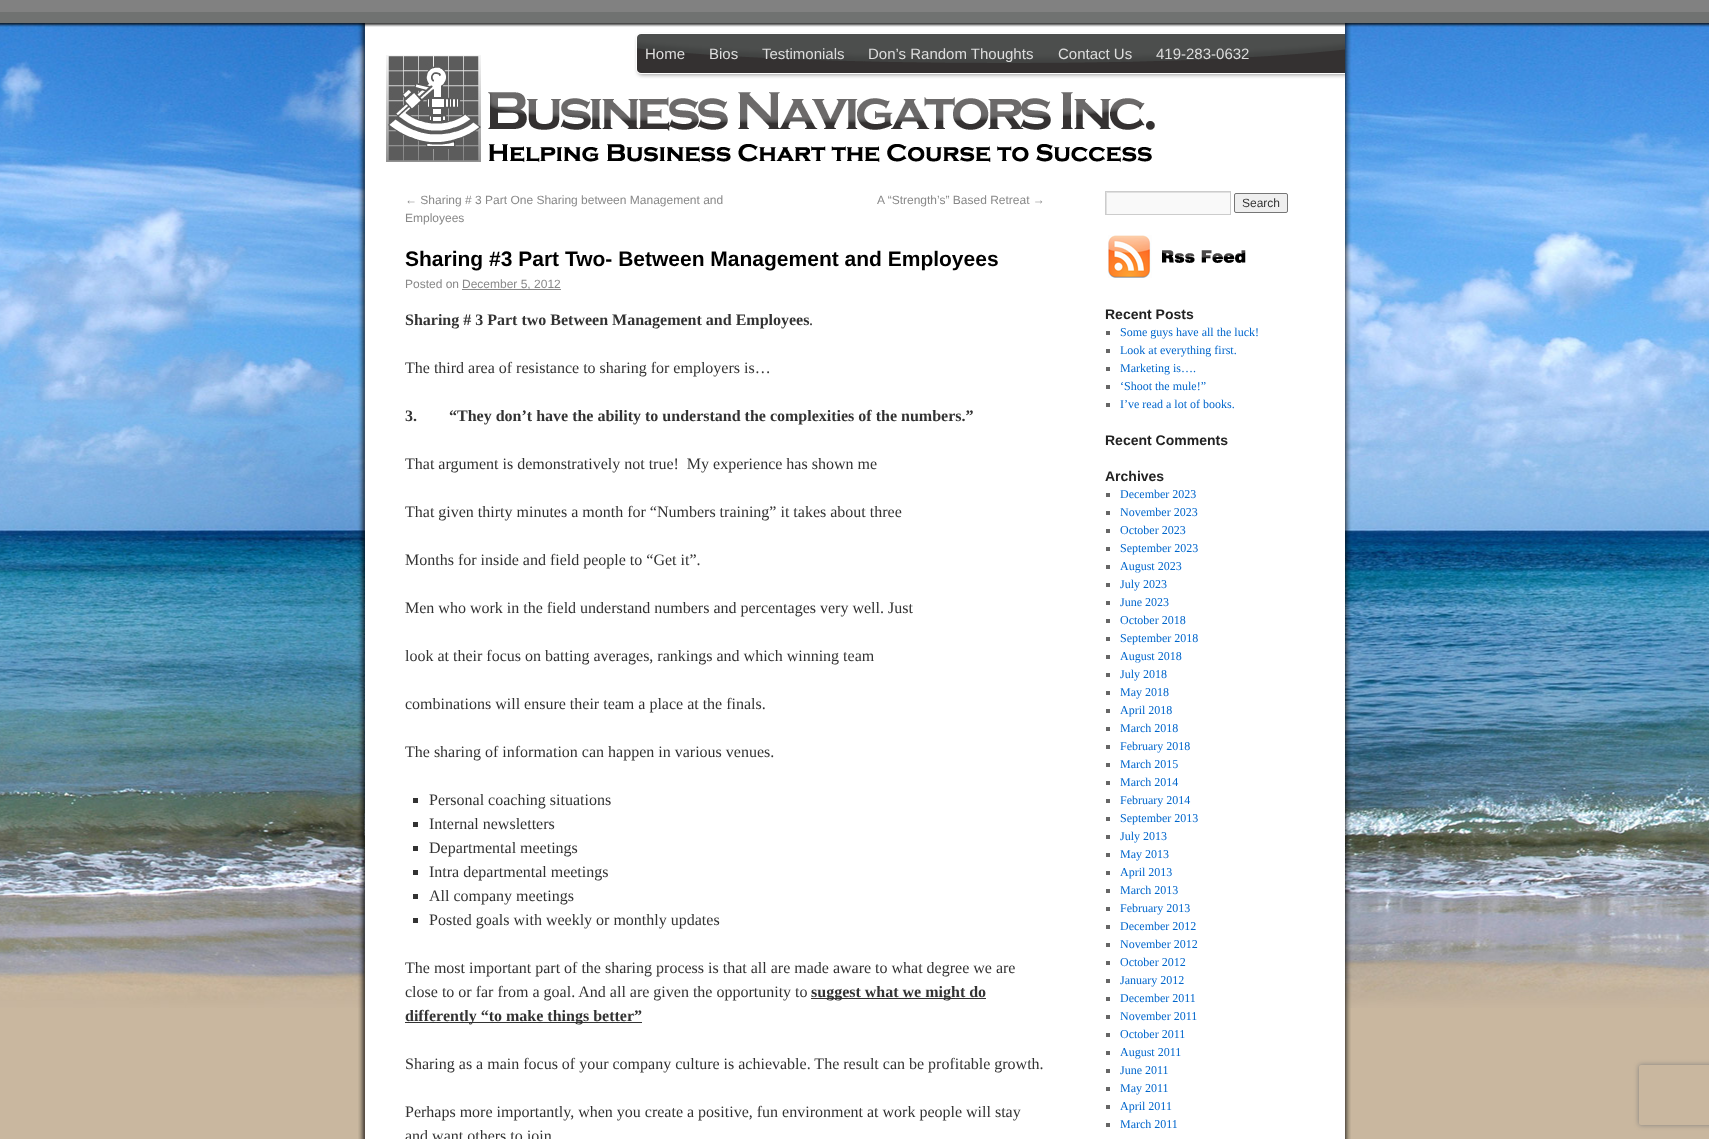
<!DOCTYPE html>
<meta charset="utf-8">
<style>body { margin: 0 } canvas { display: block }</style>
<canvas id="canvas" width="1709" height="1139"></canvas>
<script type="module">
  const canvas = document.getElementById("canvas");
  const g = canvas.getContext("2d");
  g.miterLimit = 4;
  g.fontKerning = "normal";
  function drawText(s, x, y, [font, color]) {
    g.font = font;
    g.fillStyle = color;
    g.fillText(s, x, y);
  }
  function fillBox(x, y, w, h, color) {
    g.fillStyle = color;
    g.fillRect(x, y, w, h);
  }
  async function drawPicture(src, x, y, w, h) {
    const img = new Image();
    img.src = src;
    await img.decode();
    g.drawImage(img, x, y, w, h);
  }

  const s1 = ["15px Liberation Sans", "#DDDDDD"];
  const s2 = ["12px Liberation Sans", "#888888"];
  const s3 = ["bold 21px Liberation Sans", "#000000"];
  const s4 = ["bold 16px Liberation Serif", "#333333"];
  const s5 = ["16px Liberation Serif", "#333333"];
  const s6 = ["12px Liberation Sans", "#333333"];
  const s7 = ["bold 14px Liberation Sans", "#222222"];
  const s8 = ["12px Liberation Serif", "#0066CC"];

  fillBox(0, 0, 1709, 1139, "#C9B79F");
  await drawPicture("pic1.png", 358, 1008, 993, 131);
  await drawPicture("pic2.png", 0, 23, 1709, 985);
  await drawPicture("pic3.png", 0, 0, 1709, 27);
  fillBox(365, 23, 980, 1116, "#FFFFFF");
  await drawPicture("pic4.png", 365, 0, 980, 27);
  await drawPicture("pic5.png", 386, 55, 95, 107);
  await drawPicture("pic6.png", 633, 32, 712, 47);
  drawText("Home", 645, 59, s1);
  drawText("Bios", 709, 59, s1);
  drawText("Testimonials", 762, 59, s1);
  drawText("Don’s Random Thoughts", 868, 59, s1);
  drawText("Contact Us", 1058, 59, s1);
  drawText("419-283-0632", 1156, 59, s1);
  await drawPicture("pic7.png", 488, 92, 667, 70);
  drawText("← Sharing # 3 Part One Sharing between Management and", 405, 204, s2);
  drawText("Employees", 405, 222, s2);
  drawText("A “Strength’s” Based Retreat →", 877, 204, s2);
  drawText("Sharing #3 Part Two- Between Management and Employees", 405, 266, s3);
  drawText("Posted on", 405, 288, s2);
  fillBox(462, 289, 99, 1, "#888888");
  drawText("December 5, 2012", 462, 288, s2);
  drawText("Sharing # 3 Part two Between Management and Employees", 405, 325, s4);
  drawText(".", 809, 325, s5);
  drawText("The third area of resistance to sharing for employers is…", 405, 373, s5);
  drawText("3.        “They don’t have the ability to understand the complexities of the numbers.”", 405, 421, s4);
  drawText("That argument is demonstratively not true!  My experience has shown me", 405, 469, s5);
  drawText("That given thirty minutes a month for “Numbers training” it takes about three", 405, 517, s5);
  drawText("Months for inside and field people to “Get it”.", 405, 565, s5);
  drawText("Men who work in the field understand numbers and percentages very well. Just", 405, 613, s5);
  drawText("look at their focus on batting averages, rankings and which winning team", 405, 661, s5);
  drawText("combinations will ensure their team a place at the finals.", 405, 709, s5);
  drawText("The sharing of information can happen in various venues.", 405, 757, s5);
  fillBox(413, 798, 5, 5, "#333333");
  drawText("Personal coaching situations", 429, 805, s5);
  fillBox(413, 822, 5, 5, "#333333");
  drawText("Internal newsletters", 429, 829, s5);
  fillBox(413, 846, 5, 5, "#333333");
  drawText("Departmental meetings", 429, 853, s5);
  fillBox(413, 870, 5, 5, "#333333");
  drawText("Intra departmental meetings", 429, 877, s5);
  fillBox(413, 894, 5, 5, "#333333");
  drawText("All company meetings", 429, 901, s5);
  fillBox(413, 918, 5, 5, "#333333");
  drawText("Posted goals with weekly or monthly updates", 429, 925, s5);
  drawText("The most important part of the sharing process is that all are made aware to what degree we are", 405, 973, s5);
  drawText("close to or far from a goal. And all are given the opportunity to", 405, 997, s5);
  fillBox(811, 998, 175, 1, "#333333");
  drawText("suggest what we might do", 811, 997, s4);
  fillBox(405, 1022, 237, 1, "#333333");
  drawText("differently “to make things better”", 405, 1021, s4);
  drawText("Sharing as a main focus of your company culture is achievable. The result can be profitable growth.", 405, 1069, s5);
  drawText("Perhaps more importantly, when you create a positive, fun environment at work people will stay", 405, 1117, s5);
  drawText("and want others to join", 405, 1141, s5);
  fillBox(1107, 193, 123, 21, "#F9F9F9");
  g.save();
  g.beginPath();
  g.rect(1106, 192, 124, 22);
  g.clip();
  g.fillStyle = "#E0E0E0";
  g.beginPath();
  g.moveTo(1007, 93);
  g.lineTo(1329, 93);
  g.lineTo(1329, 313);
  g.lineTo(1007, 313);
  g.closePath();
  g.moveTo(1107, 193);
  g.lineTo(1231, 193);
  g.lineTo(1231, 215);
  g.lineTo(1107, 215);
  g.closePath();
  g.fill("evenodd");
  g.restore();
  g.strokeStyle = "#CCCCCC";
  g.strokeRect(1105.5, 191.5, 125, 23);
  g.fillStyle = "#EFEFEF";
  g.beginPath();
  g.roundRect(1234.5, 193.5, 53, 19, 1.5);
  g.fill();
  g.strokeStyle = "#767676";
  g.stroke();
  drawText("Search", 1242, 207, s6);
  await drawPicture("pic8.png", 1108, 235, 138, 43);
  drawText("Recent Posts", 1105, 319, s7);
  fillBox(1106, 331, 4, 4, "#666666");
  drawText("Some guys have all the luck!", 1120, 336, s8);
  fillBox(1106, 349, 4, 4, "#666666");
  drawText("Look at everything first.", 1120, 354, s8);
  fillBox(1106, 367, 4, 4, "#666666");
  drawText("Marketing is….", 1120, 372, s8);
  fillBox(1106, 385, 4, 4, "#666666");
  drawText("‘Shoot the mule!”", 1120, 390, s8);
  fillBox(1106, 403, 4, 4, "#666666");
  drawText("I’ve read a lot of books.", 1120, 408, s8);
  drawText("Recent Comments", 1105, 445, s7);
  drawText("Archives", 1105, 481, s7);
  fillBox(1106, 493, 4, 4, "#666666");
  drawText("December 2023", 1120, 498, s8);
  fillBox(1106, 511, 4, 4, "#666666");
  drawText("November 2023", 1120, 516, s8);
  fillBox(1106, 529, 4, 4, "#666666");
  drawText("October 2023", 1120, 534, s8);
  fillBox(1106, 547, 4, 4, "#666666");
  drawText("September 2023", 1120, 552, s8);
  fillBox(1106, 565, 4, 4, "#666666");
  drawText("August 2023", 1120, 570, s8);
  fillBox(1106, 583, 4, 4, "#666666");
  drawText("July 2023", 1120, 588, s8);
  fillBox(1106, 601, 4, 4, "#666666");
  drawText("June 2023", 1120, 606, s8);
  fillBox(1106, 619, 4, 4, "#666666");
  drawText("October 2018", 1120, 624, s8);
  fillBox(1106, 637, 4, 4, "#666666");
  drawText("September 2018", 1120, 642, s8);
  fillBox(1106, 655, 4, 4, "#666666");
  drawText("August 2018", 1120, 660, s8);
  fillBox(1106, 673, 4, 4, "#666666");
  drawText("July 2018", 1120, 678, s8);
  fillBox(1106, 691, 4, 4, "#666666");
  drawText("May 2018", 1120, 696, s8);
  fillBox(1106, 709, 4, 4, "#666666");
  drawText("April 2018", 1120, 714, s8);
  fillBox(1106, 727, 4, 4, "#666666");
  drawText("March 2018", 1120, 732, s8);
  fillBox(1106, 745, 4, 4, "#666666");
  drawText("February 2018", 1120, 750, s8);
  fillBox(1106, 763, 4, 4, "#666666");
  drawText("March 2015", 1120, 768, s8);
  fillBox(1106, 781, 4, 4, "#666666");
  drawText("March 2014", 1120, 786, s8);
  fillBox(1106, 799, 4, 4, "#666666");
  drawText("February 2014", 1120, 804, s8);
  fillBox(1106, 817, 4, 4, "#666666");
  drawText("September 2013", 1120, 822, s8);
  fillBox(1106, 835, 4, 4, "#666666");
  drawText("July 2013", 1120, 840, s8);
  fillBox(1106, 853, 4, 4, "#666666");
  drawText("May 2013", 1120, 858, s8);
  fillBox(1106, 871, 4, 4, "#666666");
  drawText("April 2013", 1120, 876, s8);
  fillBox(1106, 889, 4, 4, "#666666");
  drawText("March 2013", 1120, 894, s8);
  fillBox(1106, 907, 4, 4, "#666666");
  drawText("February 2013", 1120, 912, s8);
  fillBox(1106, 925, 4, 4, "#666666");
  drawText("December 2012", 1120, 930, s8);
  fillBox(1106, 943, 4, 4, "#666666");
  drawText("November 2012", 1120, 948, s8);
  fillBox(1106, 961, 4, 4, "#666666");
  drawText("October 2012", 1120, 966, s8);
  fillBox(1106, 979, 4, 4, "#666666");
  drawText("January 2012", 1120, 984, s8);
  fillBox(1106, 997, 4, 4, "#666666");
  drawText("December 2011", 1120, 1002, s8);
  fillBox(1106, 1015, 4, 4, "#666666");
  drawText("November 2011", 1120, 1020, s8);
  fillBox(1106, 1033, 4, 4, "#666666");
  drawText("October 2011", 1120, 1038, s8);
  fillBox(1106, 1051, 4, 4, "#666666");
  drawText("August 2011", 1120, 1056, s8);
  fillBox(1106, 1069, 4, 4, "#666666");
  drawText("June 2011", 1120, 1074, s8);
  fillBox(1106, 1087, 4, 4, "#666666");
  drawText("May 2011", 1120, 1092, s8);
  fillBox(1106, 1105, 4, 4, "#666666");
  drawText("April 2011", 1120, 1110, s8);
  fillBox(1106, 1123, 4, 4, "#666666");
  drawText("March 2011", 1120, 1128, s8);
  g.save();
  g.beginPath();
  g.moveTo(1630, 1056);
  g.lineTo(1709, 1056);
  g.lineTo(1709, 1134);
  g.lineTo(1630, 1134);
  g.closePath();
  g.moveTo(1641, 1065);
  g.lineTo(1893, 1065);
  g.bezierCurveTo(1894, 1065, 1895, 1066, 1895, 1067);
  g.lineTo(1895, 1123);
  g.bezierCurveTo(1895, 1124, 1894, 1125, 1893, 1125);
  g.lineTo(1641, 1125);
  g.bezierCurveTo(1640, 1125, 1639, 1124, 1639, 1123);
  g.lineTo(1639, 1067);
  g.bezierCurveTo(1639, 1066, 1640, 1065, 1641, 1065);
  g.closePath();
  g.clip("evenodd");
  g.fillStyle = "#808080";
  g.filter = "blur(2.5px)";
  g.beginPath();
  g.roundRect(1639, 1065, 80, 60, 2);
  g.fill();
  g.filter = "none";
  g.restore();
</script>
